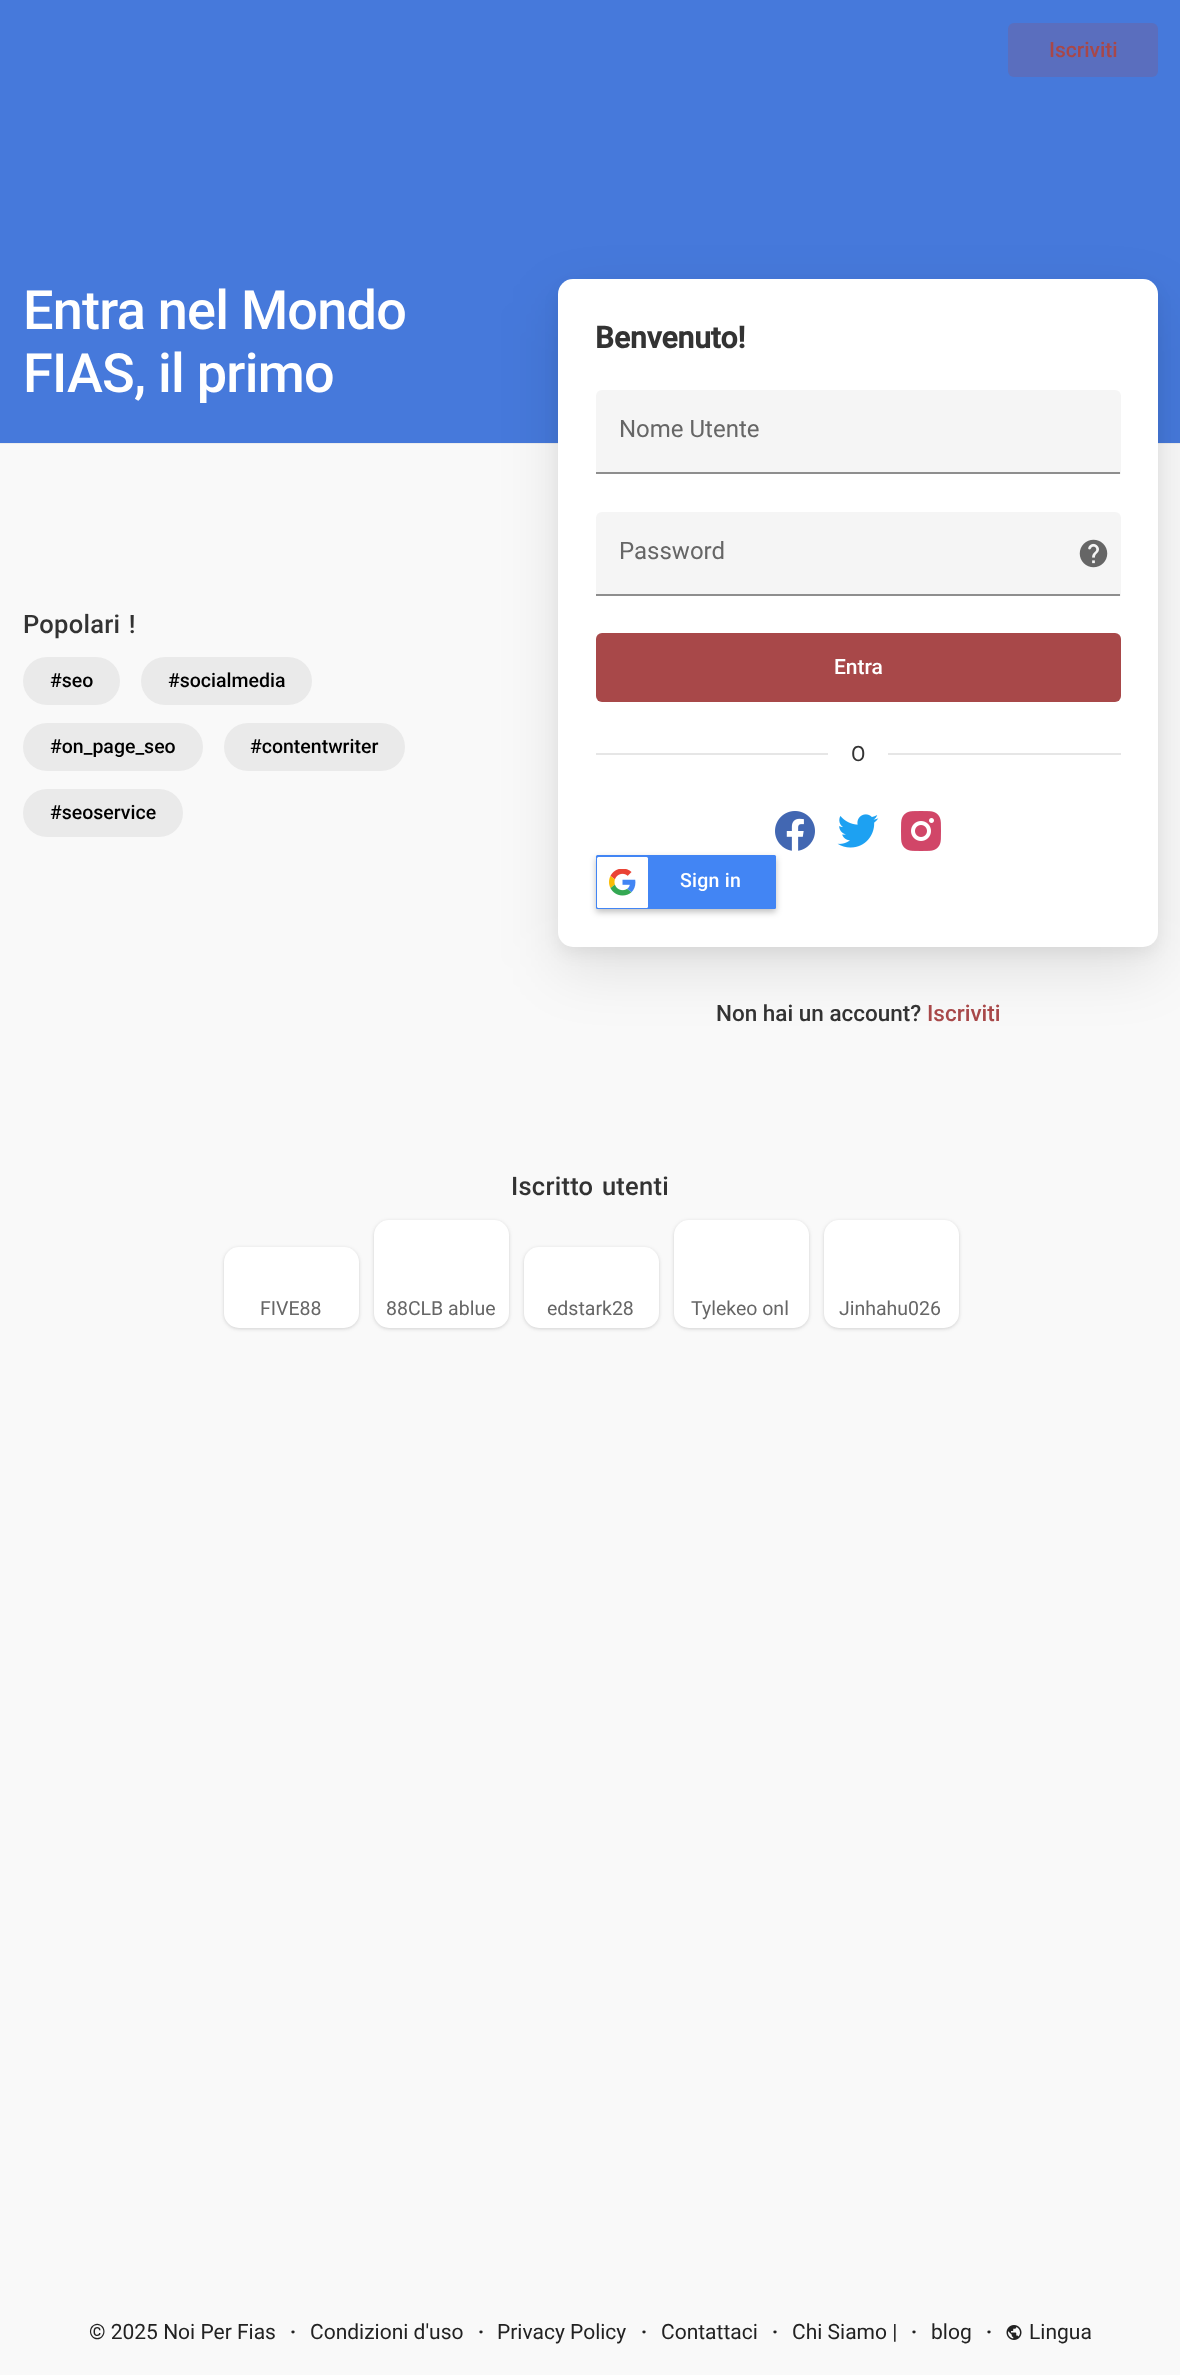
<!DOCTYPE html>
<meta charset="utf-8">
<style>body { margin: 0 } canvas { display: block }</style>
<canvas id="canvas" width="1180" height="2375"></canvas>
<script type="module">
  const canvas = document.getElementById("canvas");
  const g = canvas.getContext("2d");
  g.miterLimit = 4;
  g.fontKerning = "normal";
  function drawText(s, x, y, [font, color]) {
    g.font = font;
    g.fillStyle = color;
    g.fillText(s, x, y);
  }
  function fillBox(x, y, w, h, color) {
    g.fillStyle = color;
    g.fillRect(x, y, w, h);
  }
  function fillRounded(x, y, w, h, r, color) {
    g.fillStyle = color;
    g.beginPath();
    g.roundRect(x, y, w, h, r);
    g.fill();
  }
  async function drawPicture(src, x, y, w, h) {
    const img = new Image();
    img.src = src;
    await img.decode();
    g.drawImage(img, x, y, w, h);
  }

  const s1 = ["500 21px Roboto", "#A84849"];
  const s2 = ["500 54px Roboto", "#FFFFFF"];
  const s3 = ["500 25.5px Roboto", "#333333"];
  const s4 = ["500 19.5px Roboto", "#000000"];
  const s5 = ["19.5px Roboto", "#666666"];
  const s6 = ["bold 30px Roboto", "#333333"];
  const s7 = ["24px Roboto", "#666666"];
  const s8 = ["500 21px Roboto", "#FFFFFF"];
  const s9 = ["21px Roboto", "#333333"];
  const s10 = ["500 19.5px Roboto", "#FFFFFF"];
  const s11 = ["500 22.5px Roboto", "#333333"];
  const s12 = ["500 22.5px Roboto", "#A84849"];
  const s13 = ["21px Roboto", "#222222"];
  const s14 = ["bold 19.5px Roboto", "#222222"];

  fillBox(0, 0, 1180, 2375, "#F9F9F9");
  g.fillStyle = "#EDEDED";
  g.beginPath();
  g.moveTo(0, 442);
  g.lineTo(0, 444);
  g.lineTo(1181, 444);
  g.lineTo(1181, 2);
  g.lineTo(1180, 2);
  g.lineTo(1180, 442);
  g.closePath();
  g.fill();
  fillBox(0, 0, 1180, 443, "#4679DB");
  drawText("Iscriviti", 1049, 57, s1);
  fillRounded(1008, 23, 150, 54, 6, "rgba(168, 72, 73, 0.2)");
  g.letterSpacing = "-0.75px";
  drawText("Entra nel Mondo", 23, 329, s2);
  drawText("FIAS, il primo", 23, 392, s2);
  g.letterSpacing = "0.25px";
  g.wordSpacing = "2px";
  drawText("Popolari !", 23, 633, s3);
  fillRounded(23, 657, 97, 48, 24, "#EAEAEA");
  g.letterSpacing = "0px";
  g.wordSpacing = "0px";
  drawText("#seo", 50, 687, s4);
  fillRounded(141, 657, 171, 48, 24, "#EAEAEA");
  drawText("#socialmedia", 168, 687, s4);
  fillRounded(23, 723, 180, 48, 24, "#EAEAEA");
  drawText("#on_page_seo", 50, 753, s4);
  fillRounded(224, 723, 181, 48, 24, "#EAEAEA");
  drawText("#contentwriter", 250, 753, s4);
  fillRounded(23, 789, 160, 48, 24, "#EAEAEA");
  drawText("#seoservice", 50, 819, s4);
  g.letterSpacing = "0.25px";
  g.wordSpacing = "2px";
  drawText("Iscritto utenti", 511, 1195, s3);
  g.fillStyle = "rgba(0, 0, 0, 0.06)";
  g.filter = "blur(1.5px)";
  g.beginPath();
  g.roundRect(224, 1248, 135, 81, 15);
  g.fill();
  g.filter = "none";
  g.fillStyle = "rgba(0, 0, 0, 0.1)";
  g.filter = "blur(2px)";
  g.beginPath();
  g.roundRect(224, 1248, 135, 81, 15);
  g.fill();
  g.filter = "none";
  fillRounded(224, 1247, 135, 81, 15, "#FFFFFF");
  g.letterSpacing = "0px";
  g.wordSpacing = "0px";
  drawText("FIVE88", 260, 1315, s5);
  g.fillStyle = "rgba(0, 0, 0, 0.06)";
  g.filter = "blur(1.5px)";
  g.beginPath();
  g.roundRect(374, 1221, 135, 108, 15);
  g.fill();
  g.filter = "none";
  g.fillStyle = "rgba(0, 0, 0, 0.1)";
  g.filter = "blur(2px)";
  g.beginPath();
  g.roundRect(374, 1221, 135, 108, 15);
  g.fill();
  g.filter = "none";
  fillRounded(374, 1220, 135, 108, 15, "#FFFFFF");
  drawText("88CLB ablue", 386, 1315, s5);
  g.fillStyle = "rgba(0, 0, 0, 0.06)";
  g.filter = "blur(1.5px)";
  g.beginPath();
  g.roundRect(524, 1248, 135, 81, 15);
  g.fill();
  g.filter = "none";
  g.fillStyle = "rgba(0, 0, 0, 0.1)";
  g.filter = "blur(2px)";
  g.beginPath();
  g.roundRect(524, 1248, 135, 81, 15);
  g.fill();
  g.filter = "none";
  fillRounded(524, 1247, 135, 81, 15, "#FFFFFF");
  drawText("edstark28", 547, 1315, s5);
  g.fillStyle = "rgba(0, 0, 0, 0.06)";
  g.filter = "blur(1.5px)";
  g.beginPath();
  g.roundRect(674, 1221, 135, 108, 15);
  g.fill();
  g.filter = "none";
  g.fillStyle = "rgba(0, 0, 0, 0.1)";
  g.filter = "blur(2px)";
  g.beginPath();
  g.roundRect(674, 1221, 135, 108, 15);
  g.fill();
  g.filter = "none";
  fillRounded(674, 1220, 135, 108, 15, "#FFFFFF");
  drawText("Tylekeo onl", 691, 1315, s5);
  g.fillStyle = "rgba(0, 0, 0, 0.06)";
  g.filter = "blur(1.5px)";
  g.beginPath();
  g.roundRect(824, 1221, 135, 108, 15);
  g.fill();
  g.filter = "none";
  g.fillStyle = "rgba(0, 0, 0, 0.1)";
  g.filter = "blur(2px)";
  g.beginPath();
  g.roundRect(824, 1221, 135, 108, 15);
  g.fill();
  g.filter = "none";
  fillRounded(824, 1220, 135, 108, 15, "#FFFFFF");
  drawText("Jinhahu026", 839, 1315, s5);
  g.fillStyle = "rgba(0, 0, 0, 0.1)";
  g.filter = "blur(30px)";
  g.beginPath();
  g.roundRect(558, 302, 600, 667, 15);
  g.fill();
  g.filter = "none";
  g.fillStyle = "rgba(0, 0, 0, 0.05)";
  g.filter = "blur(7.5px)";
  g.beginPath();
  g.roundRect(558, 287, 600, 667, 15);
  g.fill();
  g.filter = "none";
  fillRounded(558, 279, 600, 668, 15, "#FFFFFF");
  drawText("Benvenuto!", 595, 348, s6);
  g.fillStyle = "#F5F5F5";
  g.beginPath();
  g.roundRect(596, 390, 525, 84, [6, 6, 0, 0]);
  g.fill();
  fillBox(596, 472, 524, 2, "#8E8E8E");
  drawText("Nome Utente", 619, 437, s7);
  g.fillStyle = "#F5F5F5";
  g.beginPath();
  g.roundRect(596, 512, 525, 84, [6, 6, 0, 0]);
  g.fill();
  fillBox(596, 594, 524, 2, "#8E8E8E");
  drawText("Password", 619, 559, s7);
  await drawPicture("pic1.png", 1079, 539, 29, 29);
  fillRounded(596, 633, 525, 69, 6, "#A84849");
  drawText("Entra", 834, 674, s8);
  fillBox(596, 753, 232, 2, "#E6E6E6");
  drawText("O", 851, 761, s9);
  fillBox(888, 753, 233, 2, "#E6E6E6");
  await drawPicture("pic2.png", 775, 811, 40, 40);
  await drawPicture("pic3.png", 837, 814, 42, 34);
  await drawPicture("pic4.png", 901, 811, 40, 40);
  g.fillStyle = "rgba(0, 0, 0, 0.25)";
  g.filter = "blur(3px)";
  g.beginPath();
  g.roundRect(596, 858, 180, 54, 1.5);
  g.fill();
  g.filter = "none";
  fillRounded(596, 855, 180, 54, 1.5, "#4285F4");
  fillRounded(597, 857, 51, 51, 1.5, "#FFFFFF");
  await drawPicture("pic5.png", 609, 869, 27, 27);
  g.letterSpacing = "0.25px";
  drawText("Sign in", 680, 887, s10);
  g.letterSpacing = "0px";
  drawText("Non hai un account?", 716, 1021, s11);
  drawText("Iscriviti", 927, 1021, s12);
  drawText("© 2025 Noi Per Fias", 89, 2339, s13);
  drawText("·", 290, 2339, s14);
  drawText("Condizioni d'uso", 310, 2339, s13);
  drawText("·", 478, 2339, s14);
  drawText("Privacy Policy", 497, 2339, s13);
  drawText("·", 641, 2339, s14);
  drawText("Contattaci", 661, 2339, s13);
  drawText("·", 772, 2339, s14);
  drawText("Chi Siamo |", 792, 2339, s13);
  drawText("·", 911, 2339, s14);
  drawText("blog", 931, 2339, s13);
  drawText("·", 986, 2339, s14);
  await drawPicture("pic6.png", 1006, 2325, 16, 15);
  drawText("Lingua", 1029, 2339, s13);
</script>
